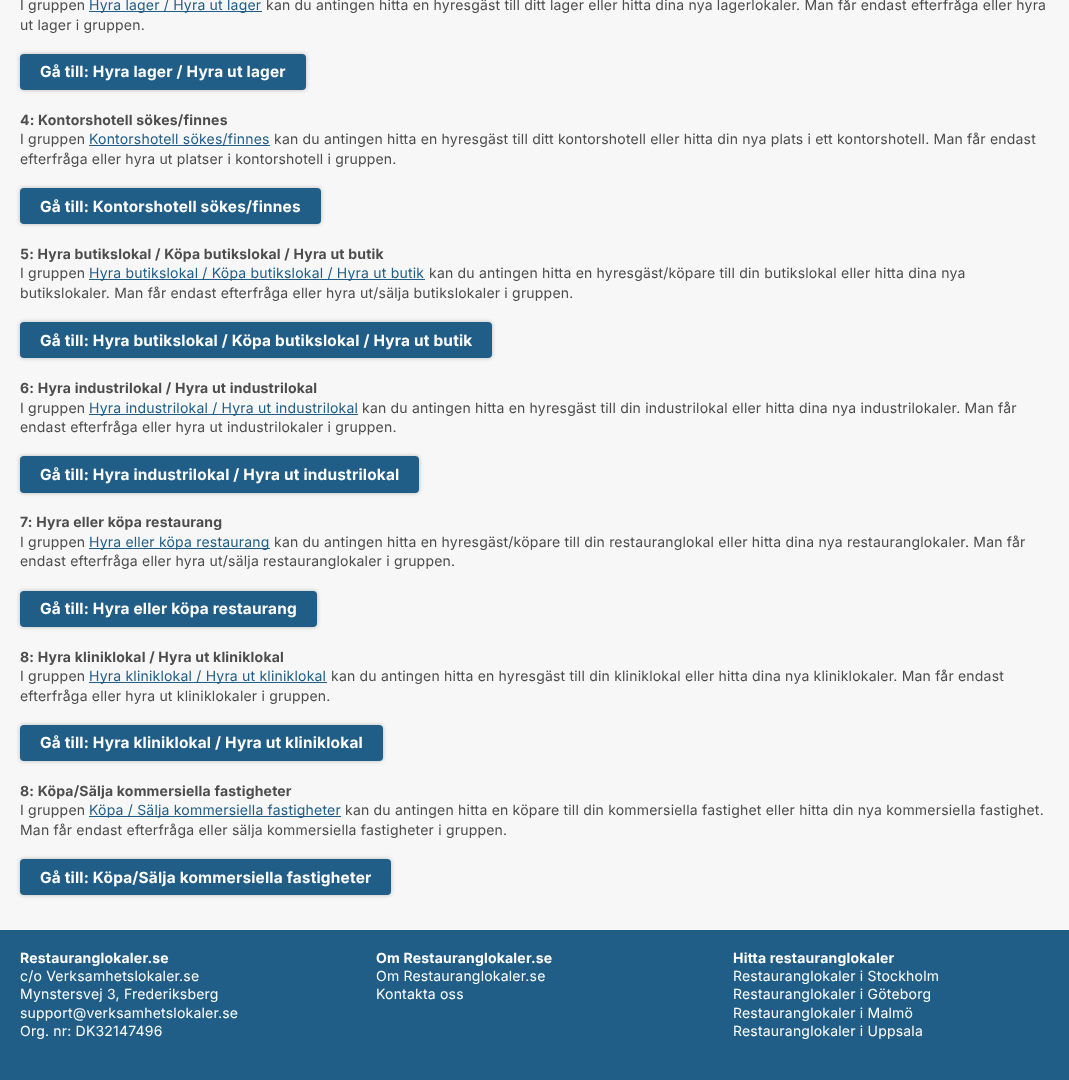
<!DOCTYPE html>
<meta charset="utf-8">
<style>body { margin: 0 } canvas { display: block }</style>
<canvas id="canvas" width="1069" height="1080"></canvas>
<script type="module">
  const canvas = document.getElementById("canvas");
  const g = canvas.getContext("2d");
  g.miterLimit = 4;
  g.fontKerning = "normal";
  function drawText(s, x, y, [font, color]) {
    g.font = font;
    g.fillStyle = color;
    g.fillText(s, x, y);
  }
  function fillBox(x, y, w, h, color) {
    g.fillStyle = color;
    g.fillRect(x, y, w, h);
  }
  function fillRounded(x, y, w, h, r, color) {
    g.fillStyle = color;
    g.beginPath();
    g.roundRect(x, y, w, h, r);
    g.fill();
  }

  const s1 = ["14px Inter", "#4D4D4D"];
  const s2 = ["14px Inter", "#215E87"];
  const s3 = ["bold 15.4px Inter", "#FFFFFF"];
  const s4 = ["bold 14px Inter", "#4D4D4D"];
  const s5 = ["bold 14px Inter", "#FFFFFF"];
  const s6 = ["14px Inter", "#FFFFFF"];

  fillBox(0, 0, 1069, 1080, "#215E87");
  fillBox(0, 0, 1069, 930, "#F7F7F7");
  g.letterSpacing = "0.2px";
  drawText("I gruppen", 20, 10, s1);
  fillBox(89, 11, 173, 1, "#215E87");
  drawText("Hyra lager / Hyra ut lager", 89, 10, s2);
  drawText("kan du antingen hitta en hyresgäst till ditt lager eller hitta dina nya lagerlokaler. Man får endast efterfråga eller hyra", 266, 10, s1);
  drawText("ut lager i gruppen.", 20, 30, s1);
  g.fillStyle = "rgba(0, 0, 0, 0.25)";
  g.filter = "blur(2px)";
  g.beginPath();
  g.roundRect(20, 54, 286, 36, 4);
  g.fill();
  g.filter = "none";
  fillRounded(20, 54, 286, 36, 4, "#215E87");
  drawText("Gå till: Hyra lager / Hyra ut lager", 40, 77, s3);
  drawText("4: Kontorshotell sökes/finnes", 20, 125, s4);
  drawText("I gruppen", 20, 144, s1);
  fillBox(89, 145, 181, 1, "#215E87");
  drawText("Kontorshotell sökes/finnes", 89, 144, s2);
  drawText("kan du antingen hitta en hyresgäst till ditt kontorshotell eller hitta din nya plats i ett kontorshotell. Man får endast", 274, 144, s1);
  drawText("efterfråga eller hyra ut platser i kontorshotell i gruppen.", 20, 164, s1);
  g.fillStyle = "rgba(0, 0, 0, 0.25)";
  g.filter = "blur(2px)";
  g.beginPath();
  g.roundRect(20, 188, 301, 36, 4);
  g.fill();
  g.filter = "none";
  fillRounded(20, 188, 301, 36, 4, "#215E87");
  drawText("Gå till: Kontorshotell sökes/finnes", 40, 212, s3);
  drawText("5: Hyra butikslokal / Köpa butikslokal / Hyra ut butik", 20, 259, s4);
  drawText("I gruppen", 20, 278, s1);
  fillBox(89, 279, 336, 1, "#215E87");
  drawText("Hyra butikslokal / Köpa butikslokal / Hyra ut butik", 89, 278, s2);
  drawText("kan du antingen hitta en hyresgäst/köpare till din butikslokal eller hitta dina nya", 429, 278, s1);
  drawText("butikslokaler. Man får endast efterfråga eller hyra ut/sälja butikslokaler i gruppen.", 20, 298, s1);
  g.fillStyle = "rgba(0, 0, 0, 0.25)";
  g.filter = "blur(2px)";
  g.beginPath();
  g.roundRect(20, 322, 472, 36, 4);
  g.fill();
  g.filter = "none";
  fillRounded(20, 322, 472, 36, 4, "#215E87");
  drawText("Gå till: Hyra butikslokal / Köpa butikslokal / Hyra ut butik", 40, 346, s3);
  drawText("6: Hyra industrilokal / Hyra ut industrilokal", 20, 393, s4);
  drawText("I gruppen", 20, 413, s1);
  fillBox(89, 414, 269, 1, "#215E87");
  drawText("Hyra industrilokal / Hyra ut industrilokal", 89, 413, s2);
  drawText("kan du antingen hitta en hyresgäst till din industrilokal eller hitta dina nya industrilokaler. Man får", 362, 413, s1);
  drawText("endast efterfråga eller hyra ut industrilokaler i gruppen.", 20, 432, s1);
  g.fillStyle = "rgba(0, 0, 0, 0.25)";
  g.filter = "blur(2px)";
  g.beginPath();
  g.roundRect(20, 456, 399, 37, 4);
  g.fill();
  g.filter = "none";
  fillRounded(20, 456, 399, 37, 4, "#215E87");
  drawText("Gå till: Hyra industrilokal / Hyra ut industrilokal", 40, 480, s3);
  drawText("7: Hyra eller köpa restaurang", 20, 527, s4);
  drawText("I gruppen", 20, 547, s1);
  fillBox(89, 548, 181, 1, "#215E87");
  drawText("Hyra eller köpa restaurang", 89, 547, s2);
  drawText("kan du antingen hitta en hyresgäst/köpare till din restauranglokal eller hitta dina nya restauranglokaler. Man får", 274, 547, s1);
  drawText("endast efterfråga eller hyra ut/sälja restauranglokaler i gruppen.", 20, 566, s1);
  g.fillStyle = "rgba(0, 0, 0, 0.25)";
  g.filter = "blur(2px)";
  g.beginPath();
  g.roundRect(20, 591, 297, 36, 4);
  g.fill();
  g.filter = "none";
  fillRounded(20, 591, 297, 36, 4, "#215E87");
  drawText("Gå till: Hyra eller köpa restaurang", 40, 614, s3);
  drawText("8: Hyra kliniklokal / Hyra ut kliniklokal", 20, 662, s4);
  drawText("I gruppen", 20, 681, s1);
  fillBox(89, 682, 238, 1, "#215E87");
  drawText("Hyra kliniklokal / Hyra ut kliniklokal", 89, 681, s2);
  drawText("kan du antingen hitta en hyresgäst till din kliniklokal eller hitta dina nya kliniklokaler. Man får endast", 331, 681, s1);
  drawText("efterfråga eller hyra ut kliniklokaler i gruppen.", 20, 701, s1);
  g.fillStyle = "rgba(0, 0, 0, 0.25)";
  g.filter = "blur(2px)";
  g.beginPath();
  g.roundRect(20, 725, 363, 36, 4);
  g.fill();
  g.filter = "none";
  fillRounded(20, 725, 363, 36, 4, "#215E87");
  drawText("Gå till: Hyra kliniklokal / Hyra ut kliniklokal", 40, 748, s3);
  drawText("8: Köpa/Sälja kommersiella fastigheter", 20, 796, s4);
  drawText("I gruppen", 20, 815, s1);
  fillBox(89, 816, 252, 1, "#215E87");
  drawText("Köpa / Sälja kommersiella fastigheter", 89, 815, s2);
  drawText("kan du antingen hitta en köpare till din kommersiella fastighet eller hitta din nya kommersiella fastighet.", 345, 815, s1);
  drawText("Man får endast efterfråga eller sälja kommersiella fastigheter i gruppen.", 20, 835, s1);
  g.fillStyle = "rgba(0, 0, 0, 0.25)";
  g.filter = "blur(2px)";
  g.beginPath();
  g.roundRect(20, 859, 371, 36, 4);
  g.fill();
  g.filter = "none";
  fillRounded(20, 859, 371, 36, 4, "#215E87");
  drawText("Gå till: Köpa/Sälja kommersiella fastigheter", 40, 883, s3);
  drawText("Restauranglokaler.se", 20, 963, s5);
  drawText("c/o Verksamhetslokaler.se", 20, 981, s6);
  drawText("Mynstersvej 3, Frederiksberg", 20, 999, s6);
  drawText("support@verksamhetslokaler.se", 20, 1018, s6);
  drawText("Org. nr: DK32147496", 20, 1036, s6);
  drawText("Om Restauranglokaler.se", 376, 963, s5);
  drawText("Om Restauranglokaler.se", 376, 981, s6);
  drawText("Kontakta oss", 376, 999, s6);
  drawText("Hitta restauranglokaler", 733, 963, s5);
  drawText("Restauranglokaler i Stockholm", 733, 981, s6);
  drawText("Restauranglokaler i Göteborg", 733, 999, s6);
  drawText("Restauranglokaler i Malmö", 733, 1018, s6);
  drawText("Restauranglokaler i Uppsala", 733, 1036, s6);
</script>
